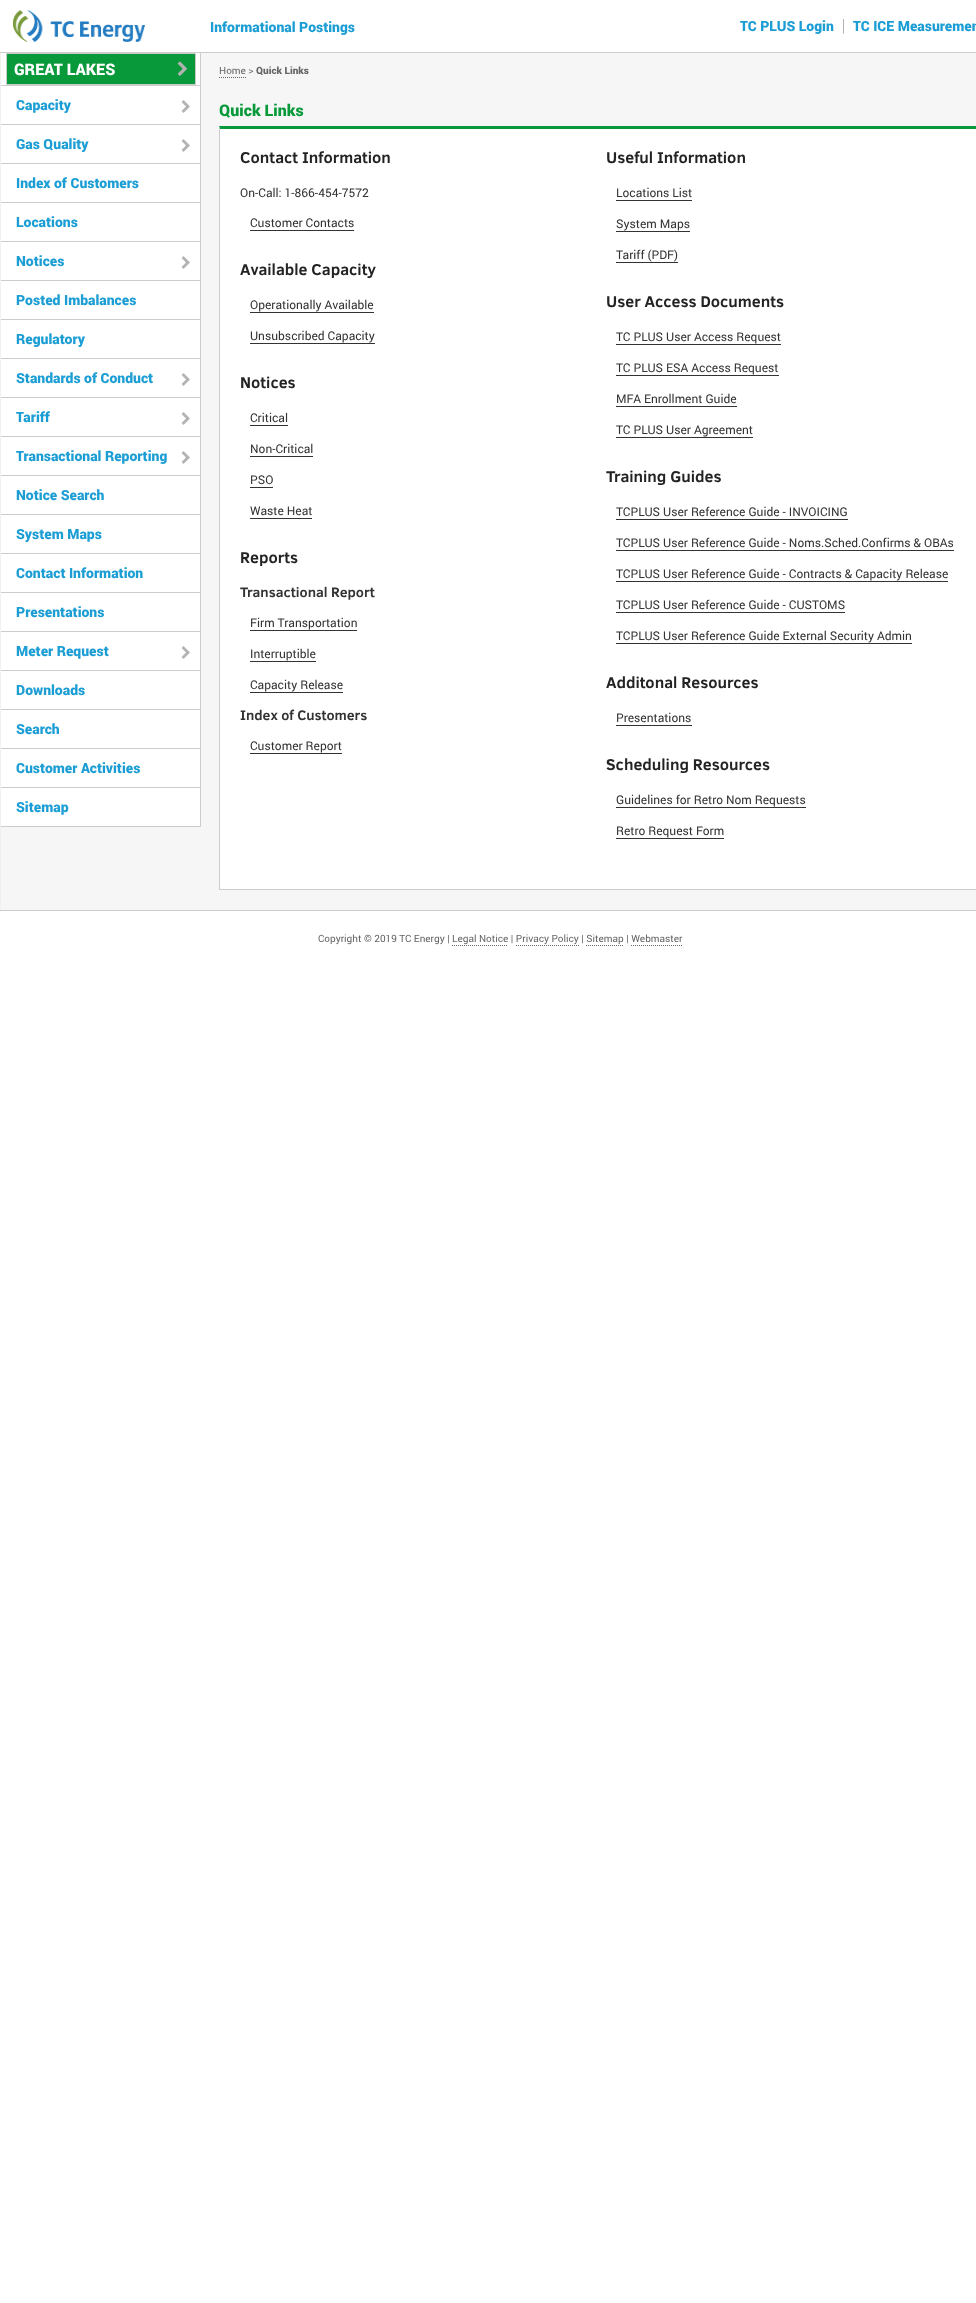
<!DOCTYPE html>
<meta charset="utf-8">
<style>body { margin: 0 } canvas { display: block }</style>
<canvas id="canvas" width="976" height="2303"></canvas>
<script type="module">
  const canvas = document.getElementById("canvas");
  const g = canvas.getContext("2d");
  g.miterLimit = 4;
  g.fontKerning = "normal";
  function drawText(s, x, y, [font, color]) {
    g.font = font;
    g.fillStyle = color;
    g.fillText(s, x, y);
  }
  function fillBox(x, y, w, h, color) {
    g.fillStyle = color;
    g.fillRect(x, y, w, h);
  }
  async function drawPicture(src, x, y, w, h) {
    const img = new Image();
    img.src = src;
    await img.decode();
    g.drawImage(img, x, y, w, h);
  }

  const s1 = ["900 14px Roboto", "#1C9ED5"];
  const s2 = ["16px Liberation Serif", "#A0A0A0"];
  const s3 = ["900 16px Roboto", "#FFFFFF"];
  const s4 = ["10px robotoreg", "#666666"];
  const s5 = ["900 10px Roboto", "#666666"];
  const s6 = ["900 16px Roboto", "#07993A"];
  const s7 = ["bold 16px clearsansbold", "#232323"];
  const s8 = ["12px robotoreg", "#333333"];
  const s9 = ["bold 14px clearsansbold", "#333333"];

  fillBox(0, 0, 976, 2303, "#FFFFFF");
  await drawPicture("pic1.png", 13, 10, 132, 32);
  drawText("Informational Postings", 210, 32, s1);
  drawText("TC PLUS Login", 740, 31, s1);
  drawText("|", 842, 30, s2);
  drawText("TC ICE Measuremen", 853, 31, s1);
  fillBox(0, 52, 976, 1, "#CCCCCC");
  fillBox(0, 910, 976, 1, "#CCCCCC");
  fillBox(1, 53, 975, 857, "#F6F6F7");
  fillBox(0, 53, 1, 857, "#F0F0F0");
  fillBox(200, 53, 1, 774, "#CCCCCC");
  fillBox(1, 53, 199, 32, "#FFFFFF");
  fillBox(1, 85, 200, 1, "#CCCCCC");
  g.fillStyle = "#07993A";
  g.beginPath();
  g.rect(6.5, 53.5, 189, 31);
  g.fill();
  g.strokeStyle = "#CCCCCC";
  g.stroke();
  drawText("GREAT LAKES", 14, 75, s3);
  await drawPicture("pic2.png", 177, 61, 10, 15);
  fillBox(1, 86, 199, 38, "#FFFFFF");
  fillBox(1, 124, 199, 1, "#CCCCCC");
  drawText("Capacity", 16, 110, s1);
  await drawPicture("pic3.png", 181, 100, 9, 13);
  fillBox(1, 125, 199, 38, "#FFFFFF");
  fillBox(1, 163, 199, 1, "#CCCCCC");
  drawText("Gas Quality", 16, 149, s1);
  await drawPicture("pic3.png", 181, 139, 9, 13);
  fillBox(1, 164, 199, 38, "#FFFFFF");
  fillBox(1, 202, 199, 1, "#CCCCCC");
  drawText("Index of Customers", 16, 188, s1);
  fillBox(1, 203, 199, 38, "#FFFFFF");
  fillBox(1, 241, 199, 1, "#CCCCCC");
  drawText("Locations", 16, 227, s1);
  fillBox(1, 242, 199, 38, "#FFFFFF");
  fillBox(1, 280, 199, 1, "#CCCCCC");
  drawText("Notices", 16, 266, s1);
  await drawPicture("pic3.png", 181, 256, 9, 13);
  fillBox(1, 281, 199, 38, "#FFFFFF");
  fillBox(1, 319, 199, 1, "#CCCCCC");
  drawText("Posted Imbalances", 16, 305, s1);
  fillBox(1, 320, 199, 38, "#FFFFFF");
  fillBox(1, 358, 199, 1, "#CCCCCC");
  drawText("Regulatory", 16, 344, s1);
  fillBox(1, 359, 199, 38, "#FFFFFF");
  fillBox(1, 397, 199, 1, "#CCCCCC");
  drawText("Standards of Conduct", 16, 383, s1);
  await drawPicture("pic3.png", 181, 373, 9, 13);
  fillBox(1, 398, 199, 38, "#FFFFFF");
  fillBox(1, 436, 199, 1, "#CCCCCC");
  drawText("Tariff", 16, 422, s1);
  await drawPicture("pic3.png", 181, 412, 9, 13);
  fillBox(1, 437, 199, 38, "#FFFFFF");
  fillBox(1, 475, 199, 1, "#CCCCCC");
  drawText("Transactional Reporting", 16, 461, s1);
  await drawPicture("pic3.png", 181, 451, 9, 13);
  fillBox(1, 476, 199, 38, "#FFFFFF");
  fillBox(1, 514, 199, 1, "#CCCCCC");
  drawText("Notice Search", 16, 500, s1);
  fillBox(1, 515, 199, 38, "#FFFFFF");
  fillBox(1, 553, 199, 1, "#CCCCCC");
  drawText("System Maps", 16, 539, s1);
  fillBox(1, 554, 199, 38, "#FFFFFF");
  fillBox(1, 592, 199, 1, "#CCCCCC");
  drawText("Contact Information", 16, 578, s1);
  fillBox(1, 593, 199, 38, "#FFFFFF");
  fillBox(1, 631, 199, 1, "#CCCCCC");
  drawText("Presentations", 16, 617, s1);
  fillBox(1, 632, 199, 38, "#FFFFFF");
  fillBox(1, 670, 199, 1, "#CCCCCC");
  drawText("Meter Request", 16, 656, s1);
  await drawPicture("pic3.png", 181, 646, 9, 13);
  fillBox(1, 671, 199, 38, "#FFFFFF");
  fillBox(1, 709, 199, 1, "#CCCCCC");
  drawText("Downloads", 16, 695, s1);
  fillBox(1, 710, 199, 38, "#FFFFFF");
  fillBox(1, 748, 199, 1, "#CCCCCC");
  drawText("Search", 16, 734, s1);
  fillBox(1, 749, 199, 38, "#FFFFFF");
  fillBox(1, 787, 199, 1, "#CCCCCC");
  drawText("Customer Activities", 16, 773, s1);
  fillBox(1, 788, 199, 38, "#FFFFFF");
  fillBox(1, 826, 199, 1, "#CCCCCC");
  drawText("Sitemap", 16, 812, s1);
  drawText("Home >", 219, 74, s4);
  g.beginPath();
  g.moveTo(219, 77.5);
  g.lineTo(246, 77.5);
  g.strokeStyle = "#666666";
  g.setLineDash([1, 1]);
  g.stroke();
  drawText("Quick Links", 256, 74, s5);
  drawText("Quick Links", 219, 116, s6);
  fillBox(220, 129, 756, 760, "#FFFFFF");
  g.fillStyle = "#07993A";
  g.beginPath();
  g.moveTo(219, 126);
  g.lineTo(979, 126);
  g.lineTo(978, 129);
  g.lineTo(220, 129);
  g.closePath();
  g.fill();
  fillBox(219, 889, 757, 1, "#CCCCCC");
  g.beginPath();
  g.moveTo(219, 890);
  g.lineTo(219, 126);
  g.lineTo(220, 129);
  g.lineTo(220, 889);
  g.closePath();
  g.fill();
  drawText("Contact Information", 240, 163, s7);
  drawText("On-Call: 1-866-454-7572", 240, 197, s8);
  fillBox(250, 230, 104, 1, "#333333");
  drawText("Customer Contacts", 250, 227, s8);
  drawText("Available Capacity", 240, 275, s7);
  fillBox(250, 312, 124, 1, "#333333");
  drawText("Operationally Available", 250, 309, s8);
  fillBox(250, 343, 125, 1, "#333333");
  drawText("Unsubscribed Capacity", 250, 340, s8);
  drawText("Notices", 240, 388, s7);
  fillBox(250, 425, 38, 1, "#333333");
  drawText("Critical", 250, 422, s8);
  fillBox(250, 456, 63, 1, "#333333");
  drawText("Non-Critical", 250, 453, s8);
  fillBox(250, 487, 23, 1, "#333333");
  drawText("PSO", 250, 484, s8);
  fillBox(250, 518, 62, 1, "#333333");
  drawText("Waste Heat", 250, 515, s8);
  drawText("Reports", 240, 563, s7);
  drawText("Transactional Report", 240, 597, s9);
  fillBox(250, 630, 107, 1, "#333333");
  drawText("Firm Transportation", 250, 627, s8);
  fillBox(250, 661, 66, 1, "#333333");
  drawText("Interruptible", 250, 658, s8);
  fillBox(250, 692, 93, 1, "#333333");
  drawText("Capacity Release", 250, 689, s8);
  drawText("Index of Customers", 240, 720, s9);
  fillBox(250, 753, 92, 1, "#333333");
  drawText("Customer Report", 250, 750, s8);
  drawText("Useful Information", 606, 163, s7);
  fillBox(616, 200, 76, 1, "#333333");
  drawText("Locations List", 616, 197, s8);
  fillBox(616, 231, 74, 1, "#333333");
  drawText("System Maps", 616, 228, s8);
  fillBox(616, 262, 62, 1, "#333333");
  drawText("Tariff (PDF)", 616, 259, s8);
  drawText("User Access Documents", 606, 307, s7);
  fillBox(616, 344, 165, 1, "#333333");
  drawText("TC PLUS User Access Request", 616, 341, s8);
  fillBox(616, 375, 163, 1, "#333333");
  drawText("TC PLUS ESA Access Request", 616, 372, s8);
  fillBox(616, 406, 121, 1, "#333333");
  drawText("MFA Enrollment Guide", 616, 403, s8);
  fillBox(616, 437, 137, 1, "#333333");
  drawText("TC PLUS User Agreement", 616, 434, s8);
  drawText("Training Guides", 606, 482, s7);
  fillBox(616, 519, 232, 1, "#333333");
  drawText("TCPLUS User Reference Guide - INVOICING", 616, 516, s8);
  fillBox(616, 550, 338, 1, "#333333");
  drawText("TCPLUS User Reference Guide - Noms.Sched.Confirms & OBAs", 616, 547, s8);
  fillBox(616, 581, 332, 1, "#333333");
  drawText("TCPLUS User Reference Guide - Contracts & Capacity Release", 616, 578, s8);
  fillBox(616, 612, 229, 1, "#333333");
  drawText("TCPLUS User Reference Guide - CUSTOMS", 616, 609, s8);
  fillBox(616, 643, 296, 1, "#333333");
  drawText("TCPLUS User Reference Guide External Security Admin", 616, 640, s8);
  drawText("Additonal Resources", 606, 688, s7);
  fillBox(616, 725, 76, 1, "#333333");
  drawText("Presentations", 616, 722, s8);
  drawText("Scheduling Resources", 606, 770, s7);
  fillBox(616, 807, 190, 1, "#333333");
  drawText("Guidelines for Retro Nom Requests", 616, 804, s8);
  fillBox(616, 838, 108, 1, "#333333");
  drawText("Retro Request Form", 616, 835, s8);
  drawText("Copyright © 2019 TC Energy | Legal Notice | Privacy Policy | Sitemap | Webmaster", 318, 942, s4);
  g.beginPath();
  g.moveTo(452, 945.5);
  g.lineTo(508, 945.5);
  g.stroke();
  g.beginPath();
  g.moveTo(516, 945.5);
  g.lineTo(579, 945.5);
  g.stroke();
  g.beginPath();
  g.moveTo(586, 945.5);
  g.lineTo(624, 945.5);
  g.stroke();
  g.beginPath();
  g.moveTo(631, 945.5);
  g.lineTo(682, 945.5);
  g.stroke();
</script>
